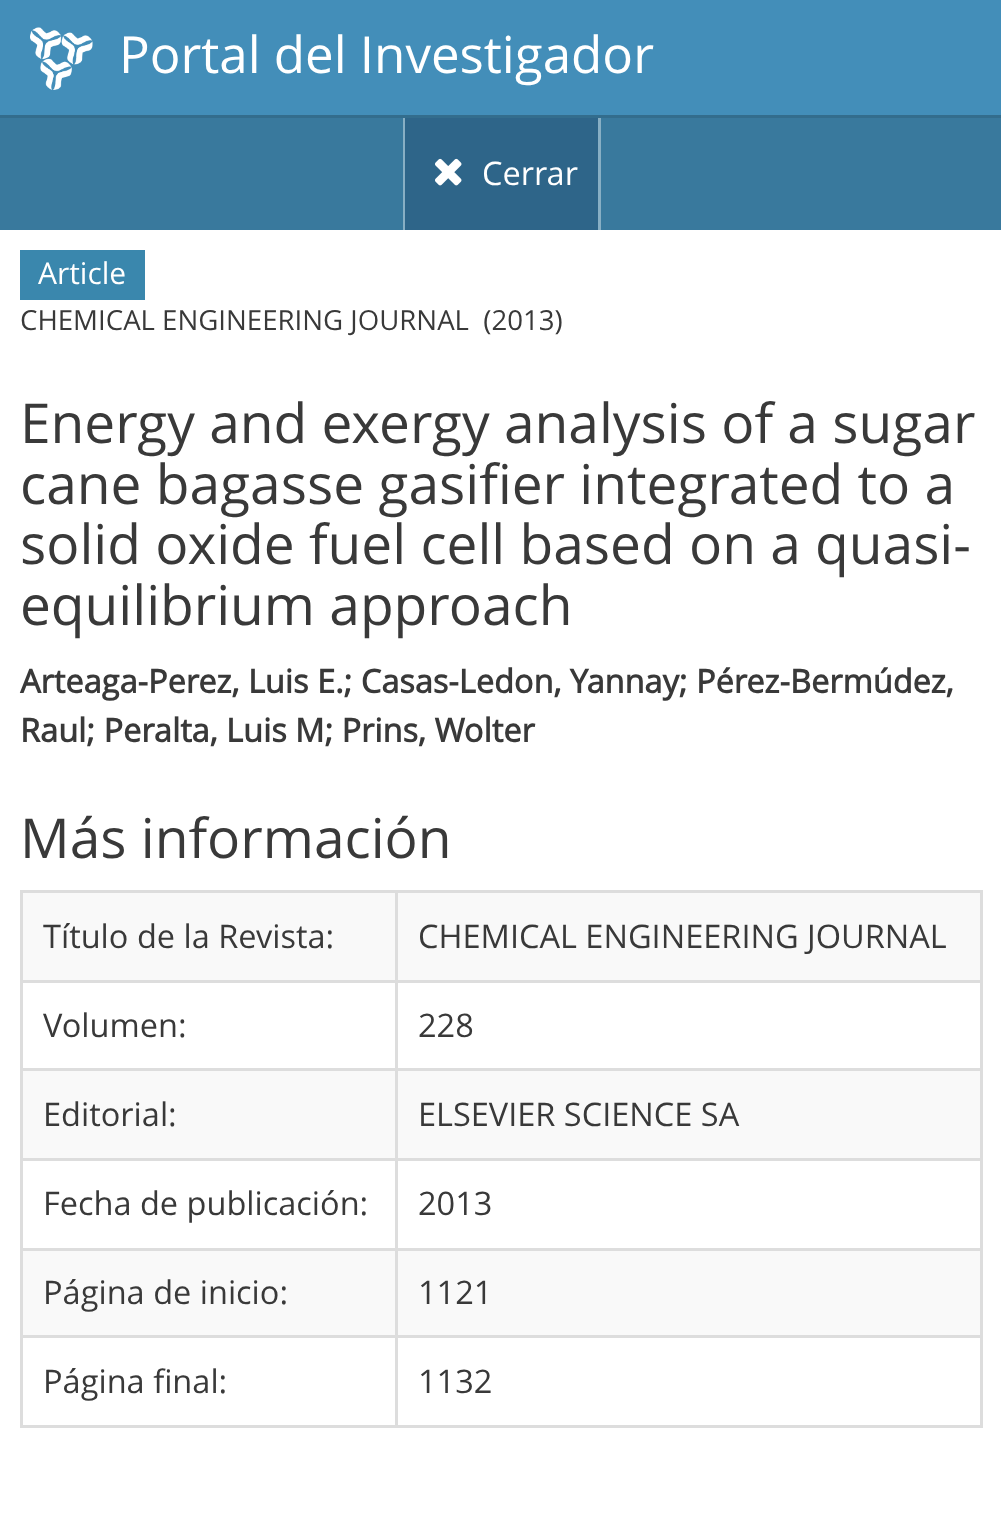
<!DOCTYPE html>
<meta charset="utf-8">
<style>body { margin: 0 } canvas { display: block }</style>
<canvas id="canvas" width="1001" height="1529"></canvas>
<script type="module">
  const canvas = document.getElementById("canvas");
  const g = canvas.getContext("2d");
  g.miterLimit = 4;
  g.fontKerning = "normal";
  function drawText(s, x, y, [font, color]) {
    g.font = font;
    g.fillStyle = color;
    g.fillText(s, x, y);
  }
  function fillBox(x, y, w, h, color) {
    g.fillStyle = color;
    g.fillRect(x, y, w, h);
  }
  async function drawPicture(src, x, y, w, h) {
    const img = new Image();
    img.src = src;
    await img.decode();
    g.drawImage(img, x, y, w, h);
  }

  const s1 = ["51px Open Sans", "#FFFFFF"];
  const s2 = ["32.5px Open Sans", "#FFFFFF"];
  const s3 = ["30px Open Sans", "#FFFFFF"];
  const s4 = ["27.6px Open Sans", "#393939"];
  const s5 = ["55px Open Sans", "#393939"];
  const s6 = ["bold 32.5px Open Sans", "#393939"];
  const s7 = ["32.5px Open Sans", "#393939"];

  fillBox(0, 0, 1001, 1529, "#FFFFFF");
  fillBox(0, 0, 1001, 115, "#438EB9");
  await drawPicture("pic1.png", 30, 27, 63, 63);
  drawText("Portal del Investigador", 119, 73, s1);
  fillBox(0, 118, 1001, 112, "#39799D");
  fillBox(0, 115, 1001, 3, "#336D8D");
  fillBox(598, 118, 3, 112, "#88AFC4");
  fillBox(403, 118, 2, 112, "#88AFC4");
  fillBox(405, 118, 193, 112, "#2E6589");
  await drawPicture("pic2.png", 435, 158, 27, 28);
  drawText("Cerrar", 482, 185, s2);
  fillBox(20, 250, 125, 50, "#3A87AD");
  drawText("Article", 38, 284, s3);
  drawText("CHEMICAL ENGINEERING JOURNAL  (2013)", 20, 330, s4);
  drawText("Energy and exergy analysis of a sugar", 20, 443, s5);
  drawText("cane bagasse gasifier integrated to a", 20, 504, s5);
  drawText("solid oxide fuel cell based on a quasi-", 20, 564, s5);
  drawText("equilibrium approach", 20, 625, s5);
  drawText("Arteaga-Perez, Luis E.; Casas-Ledon, Yannay; Pérez-Bermúdez,", 20, 693, s6);
  drawText("Raul; Peralta, Luis M; Prins, Wolter", 20, 742, s6);
  drawText("Más información", 20, 858, s5);
  fillBox(20, 890, 963, 3, "#DDDDDD");
  fillBox(980, 890, 3, 538, "#DDDDDD");
  fillBox(20, 1425, 963, 3, "#DDDDDD");
  fillBox(20, 890, 3, 538, "#DDDDDD");
  fillBox(23, 893, 957, 87, "#F9F9F9");
  drawText("Título de la Revista:", 43, 948, s7);
  fillBox(395, 980, 588, 3, "#DDDDDD");
  fillBox(395, 1068, 588, 3, "#DDDDDD");
  fillBox(23, 1071, 957, 87, "#F9F9F9");
  fillBox(395, 1158, 588, 3, "#DDDDDD");
  fillBox(395, 1248, 588, 3, "#DDDDDD");
  fillBox(23, 1251, 957, 84, "#F9F9F9");
  fillBox(395, 1335, 588, 3, "#DDDDDD");
  fillBox(395, 1335, 3, 93, "#DDDDDD");
  fillBox(20, 1335, 378, 3, "#DDDDDD");
  fillBox(395, 1248, 3, 90, "#DDDDDD");
  fillBox(20, 1248, 378, 3, "#DDDDDD");
  fillBox(395, 1158, 3, 92, "#DDDDDD");
  fillBox(20, 1158, 378, 3, "#DDDDDD");
  fillBox(395, 1068, 3, 92, "#DDDDDD");
  fillBox(20, 1068, 378, 3, "#DDDDDD");
  fillBox(395, 980, 3, 90, "#DDDDDD");
  fillBox(20, 980, 378, 3, "#DDDDDD");
  fillBox(395, 890, 3, 93, "#DDDDDD");
  drawText("CHEMICAL ENGINEERING JOURNAL", 418, 948, s7);
  drawText("Volumen:", 43, 1037, s7);
  drawText("228", 418, 1037, s7);
  drawText("Editorial:", 43, 1126, s7);
  drawText("ELSEVIER SCIENCE SA", 418, 1126, s7);
  drawText("Fecha de publicación:", 43, 1215, s7);
  drawText("2013", 418, 1215, s7);
  drawText("Página de inicio:", 43, 1304, s7);
  drawText("1121", 418, 1304, s7);
  drawText("Página final:", 43, 1393, s7);
  drawText("1132", 418, 1393, s7);
</script>
